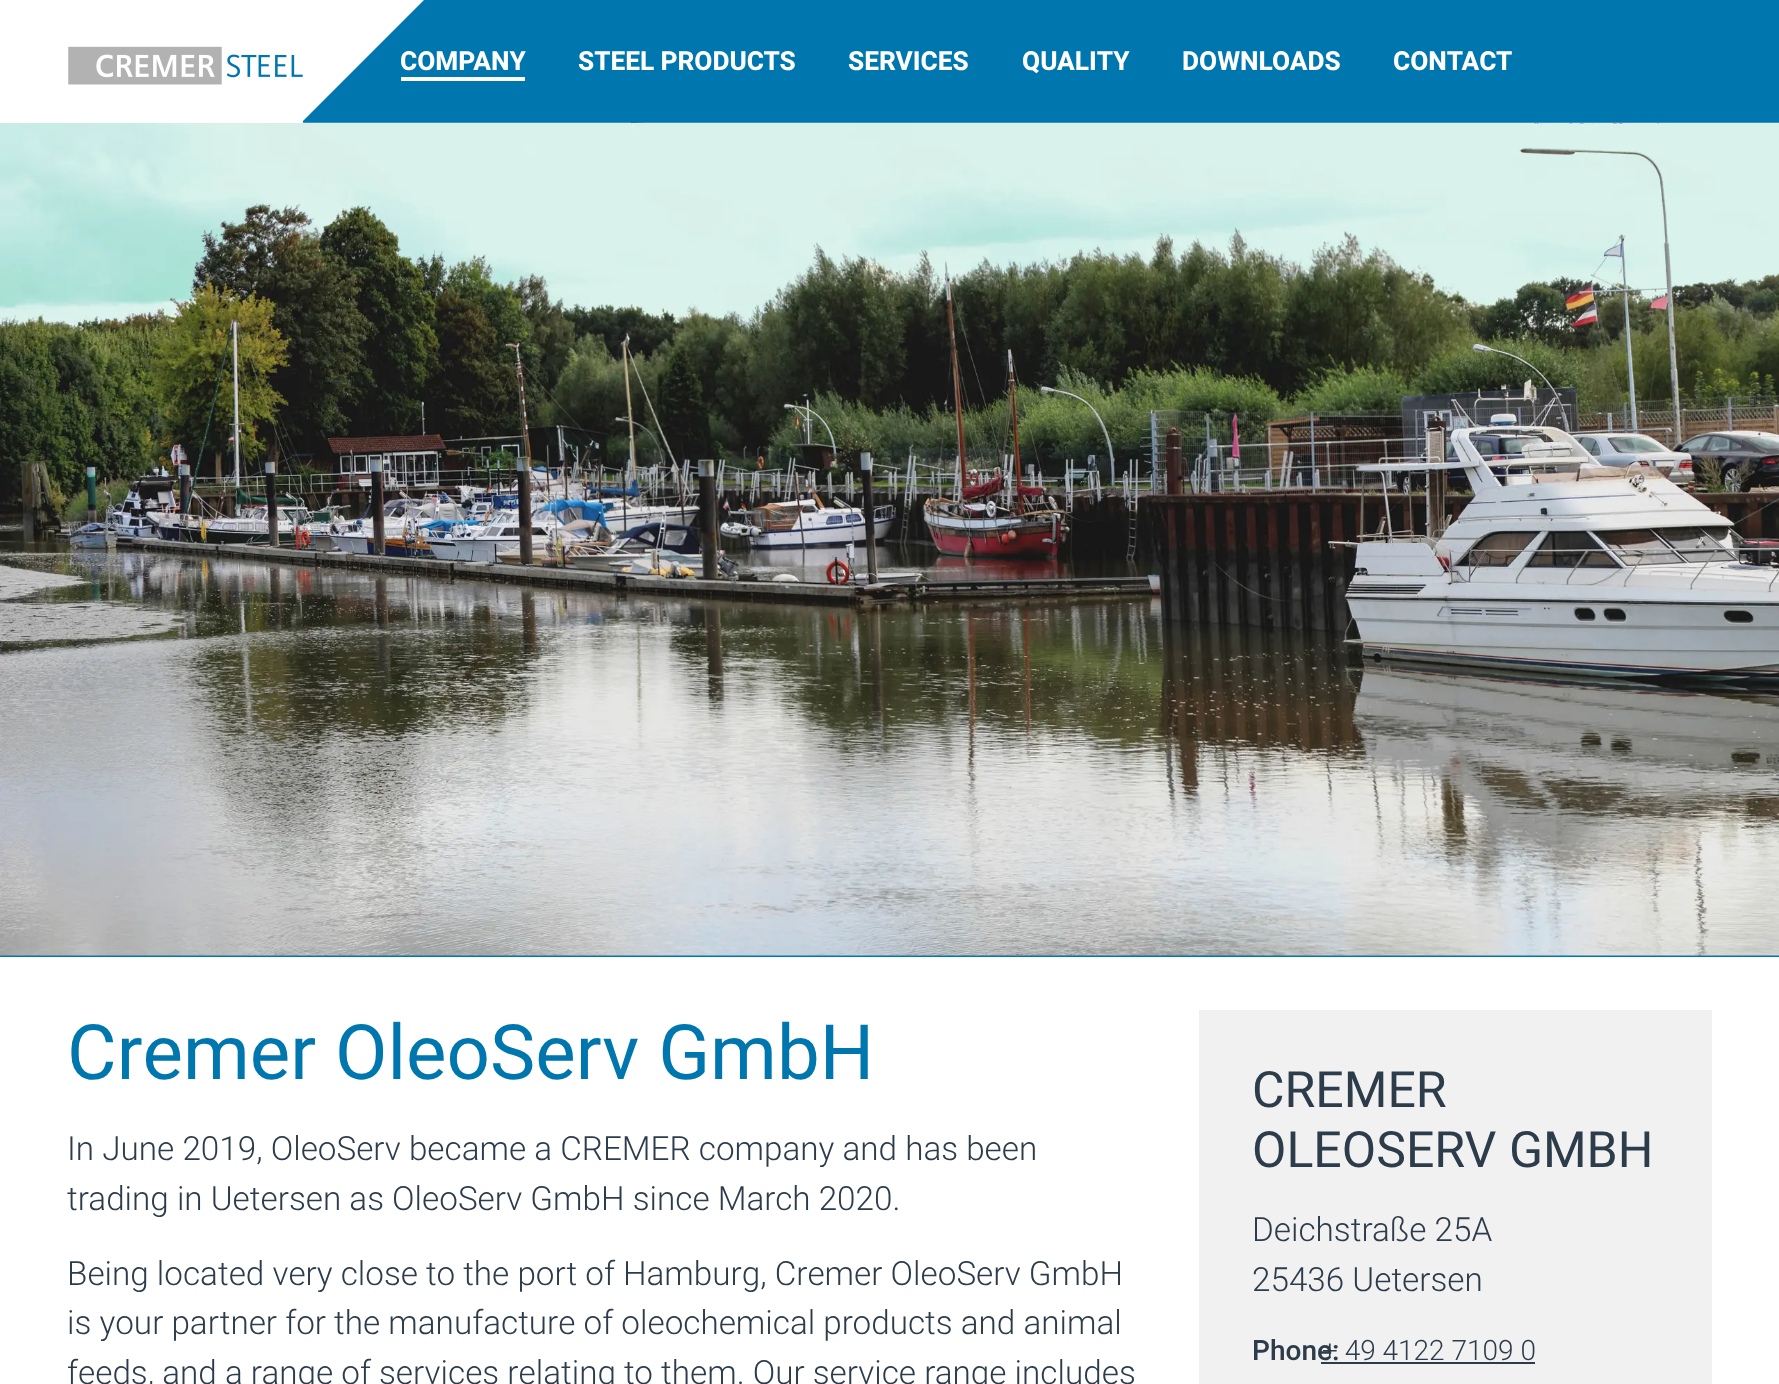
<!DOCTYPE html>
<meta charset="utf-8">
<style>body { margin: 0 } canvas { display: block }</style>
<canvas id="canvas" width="1779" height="1384"></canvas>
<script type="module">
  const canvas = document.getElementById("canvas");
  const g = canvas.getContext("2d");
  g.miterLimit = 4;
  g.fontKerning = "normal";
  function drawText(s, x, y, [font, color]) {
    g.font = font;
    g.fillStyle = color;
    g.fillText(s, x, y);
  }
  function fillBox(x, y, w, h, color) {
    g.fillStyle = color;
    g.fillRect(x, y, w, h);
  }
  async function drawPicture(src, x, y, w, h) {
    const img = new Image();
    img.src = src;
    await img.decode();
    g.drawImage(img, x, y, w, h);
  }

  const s1 = ["bold 26.25px Heebo", "#FFFFFF"];
  const s2 = ["76.25px Heebo", "#0076AE"];
  const s3 = ["300 33.25px Heebo", "#2D3C4B"];
  const s4 = ["50px Heebo", "#2D3C4B"];
  const s5 = ["500 28px Heebo", "#2D3C4B"];
  const s6 = ["300 28px Heebo", "#2D3C4B"];

  fillBox(0, 0, 1779, 1384, "#FFFFFF");
  fillBox(0, 0, 1779, 957, "#0076AE");
  await drawPicture("pic2.png", 0, 122, 1779, 834);
  fillBox(0, 0, 303, 123, "#FFFFFF");
  fillBox(401, 77, 124, 4, "#FFFFFF");
  g.beginPath();
  g.moveTo(302, 0);
  g.lineTo(424, 0);
  g.lineTo(302, 122);
  g.closePath();
  g.fill();
  await drawPicture("pic1.png", 68, 46, 235, 39);
  drawText("COMPANY", 400, 70, s1);
  drawText("STEEL PRODUCTS", 578, 70, s1);
  drawText("SERVICES", 848, 70, s1);
  drawText("QUALITY", 1022, 70, s1);
  drawText("DOWNLOADS", 1182, 70, s1);
  drawText("CONTACT", 1393, 70, s1);
  drawText("Cremer OleoServ GmbH", 67, 1079, s2);
  drawText("In June 2019, OleoServ became a CREMER company and has been", 67, 1160, s3);
  drawText("trading in Uetersen as OleoServ GmbH since March 2020.", 67, 1210, s3);
  drawText("Being located very close to the port of Hamburg, Cremer OleoServ GmbH", 67, 1285, s3);
  drawText("is your partner for the manufacture of oleochemical products and animal", 67, 1334, s3);
  drawText("feeds, and a range of services relating to them. Our service range includes", 67, 1384, s3);
  g.fillStyle = "#F1F1F1";
  g.beginPath();
  g.moveTo(1199, 1010);
  g.lineTo(1712, 1010);
  g.lineTo(1712, 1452);
  g.lineTo(1613, 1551);
  g.lineTo(1199, 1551);
  g.closePath();
  g.fill();
  drawText("CREMER", 1252, 1107, s4);
  drawText("OLEOSERV GMBH", 1252, 1167, s4);
  drawText("Deichstraße 25A", 1252, 1241, s3);
  drawText("25436 Uetersen", 1252, 1291, s3);
  drawText("Phone:", 1252, 1360, s5);
  drawText("+ 49 4122 7109 0", 1322, 1360, s6);
  fillBox(1321, 1362, 214, 2, "#2D3C4B");
</script>
